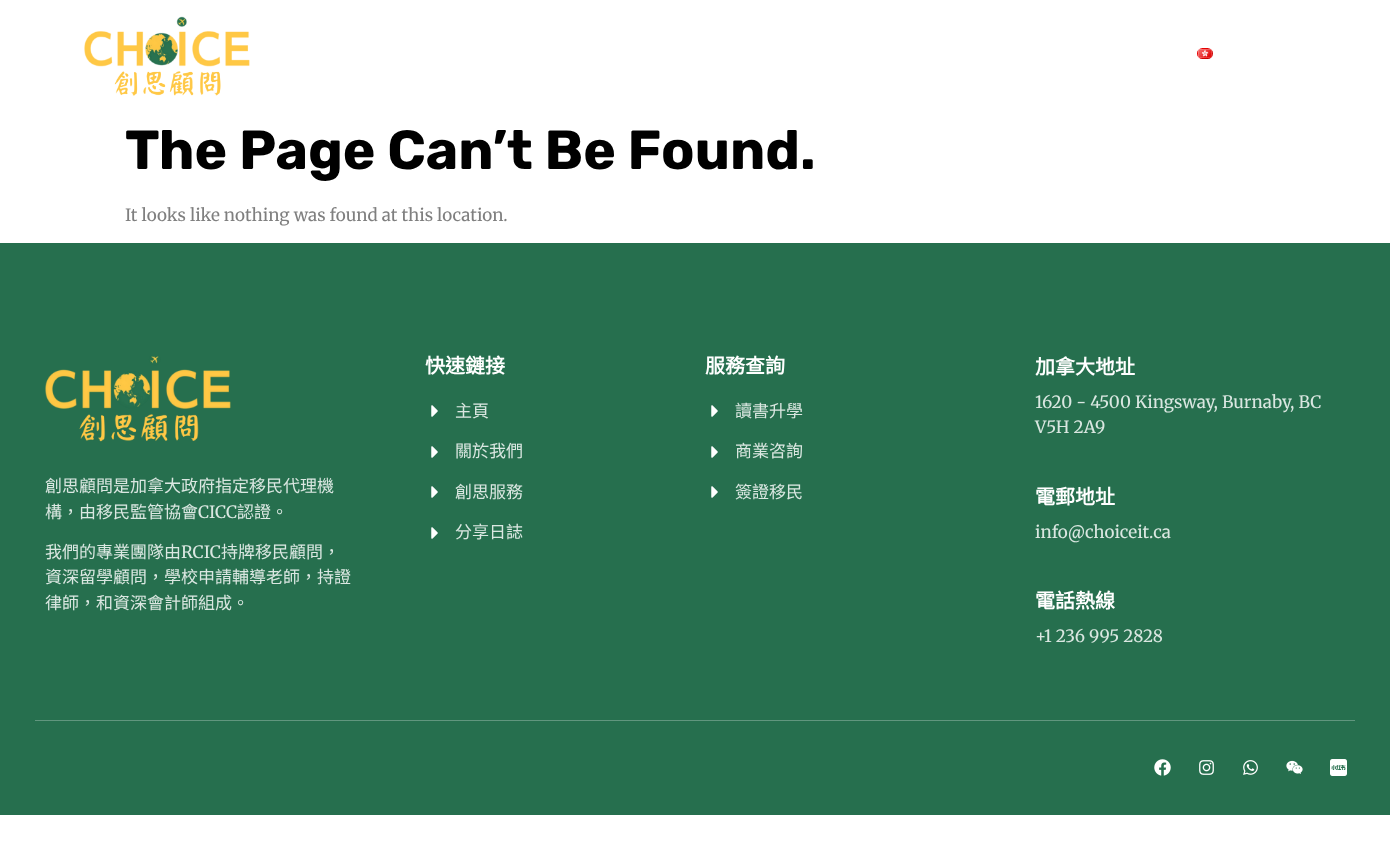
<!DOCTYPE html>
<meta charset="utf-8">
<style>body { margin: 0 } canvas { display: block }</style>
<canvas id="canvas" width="1390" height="852"></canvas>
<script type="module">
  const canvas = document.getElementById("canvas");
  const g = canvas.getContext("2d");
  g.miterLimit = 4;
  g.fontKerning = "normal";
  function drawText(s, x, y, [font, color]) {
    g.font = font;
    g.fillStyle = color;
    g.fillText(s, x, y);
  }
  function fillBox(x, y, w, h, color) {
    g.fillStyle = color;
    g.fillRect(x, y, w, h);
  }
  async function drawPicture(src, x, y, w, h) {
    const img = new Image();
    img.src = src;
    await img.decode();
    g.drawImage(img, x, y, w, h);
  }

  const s1 = ["bold 55px Rubik", "#000000"];
  const s2 = ["17px Merriweather", "#7F7F7F"];
  const s3 = ["17px Noto Sans CJK HK", "#DAE7E1"];
  const s4 = ["17px Merriweather", "#DAE7E1"];
  const s5 = ["bold 20px Noto Sans CJK HK", "#FFFFFF"];

  fillBox(0, 0, 1390, 852, "#FFFFFF");
  await drawPicture("pic1.png", 84, 16, 166, 80);
  await drawPicture("pic2.png", 1197, 48, 16, 11);
  drawText("The Page Can’t Be Found.", 125, 169, s1);
  drawText("It looks like nothing was found at this location.", 125, 221, s2);
  fillBox(0, 243, 1390, 572, "#266F4E");
  await drawPicture("pic3.png", 45, 356, 186, 86);
  drawText("創思顧問是加拿大政府指定移民代理機", 45, 492, s3);
  drawText("構，由移民監管協會", 45, 518, s3);
  drawText("CICC", 198, 518, s4);
  drawText("認證。", 237, 518, s3);
  drawText("我們的專業團隊由", 45, 558, s3);
  drawText("RCIC", 181, 558, s4);
  drawText("持牌移民顧問，", 221, 558, s3);
  drawText("資深留學顧問，學校申請輔導老師，持證", 45, 583, s3);
  drawText("律師，和資深會計師組成。", 45, 609, s3);
  drawText("快速鏈接", 425, 373, s5);
  await drawPicture("pic4.png", 431, 405, 7, 12);
  drawText("主頁", 455, 417, s3);
  await drawPicture("pic4.png", 431, 446, 7, 12);
  drawText("關於我們", 455, 457, s3);
  await drawPicture("pic4.png", 431, 486, 7, 12);
  drawText("創思服務", 455, 498, s3);
  await drawPicture("pic4.png", 431, 527, 7, 12);
  drawText("分享日誌", 455, 538, s3);
  drawText("服務查詢", 705, 373, s5);
  await drawPicture("pic4.png", 711, 405, 7, 12);
  drawText("讀書升學", 735, 417, s3);
  await drawPicture("pic4.png", 711, 446, 7, 12);
  drawText("商業咨詢", 735, 457, s3);
  await drawPicture("pic4.png", 711, 486, 7, 12);
  drawText("簽證移民", 735, 498, s3);
  drawText("加拿大地址", 1035, 374, s5);
  drawText("1620 - 4500 Kingsway, Burnaby, BC", 1035, 408, s4);
  drawText("V5H 2A9", 1035, 433, s4);
  drawText("電郵地址", 1035, 504, s5);
  drawText("info@choiceit.ca", 1035, 538, s4);
  drawText("電話熱線", 1035, 608, s5);
  drawText("+1 236 995 2828", 1035, 642, s4);
  fillBox(35, 720, 1320, 1, "#61967E");
  await drawPicture("pic5.png", 1154, 759, 17, 17);
  await drawPicture("pic6.png", 1199, 760, 15, 15);
  await drawPicture("pic7.png", 1243, 760, 15, 15);
  await drawPicture("pic8.png", 1286, 760, 17, 14);
  await drawPicture("pic9.png", 1330, 759, 17, 17);
</script>
